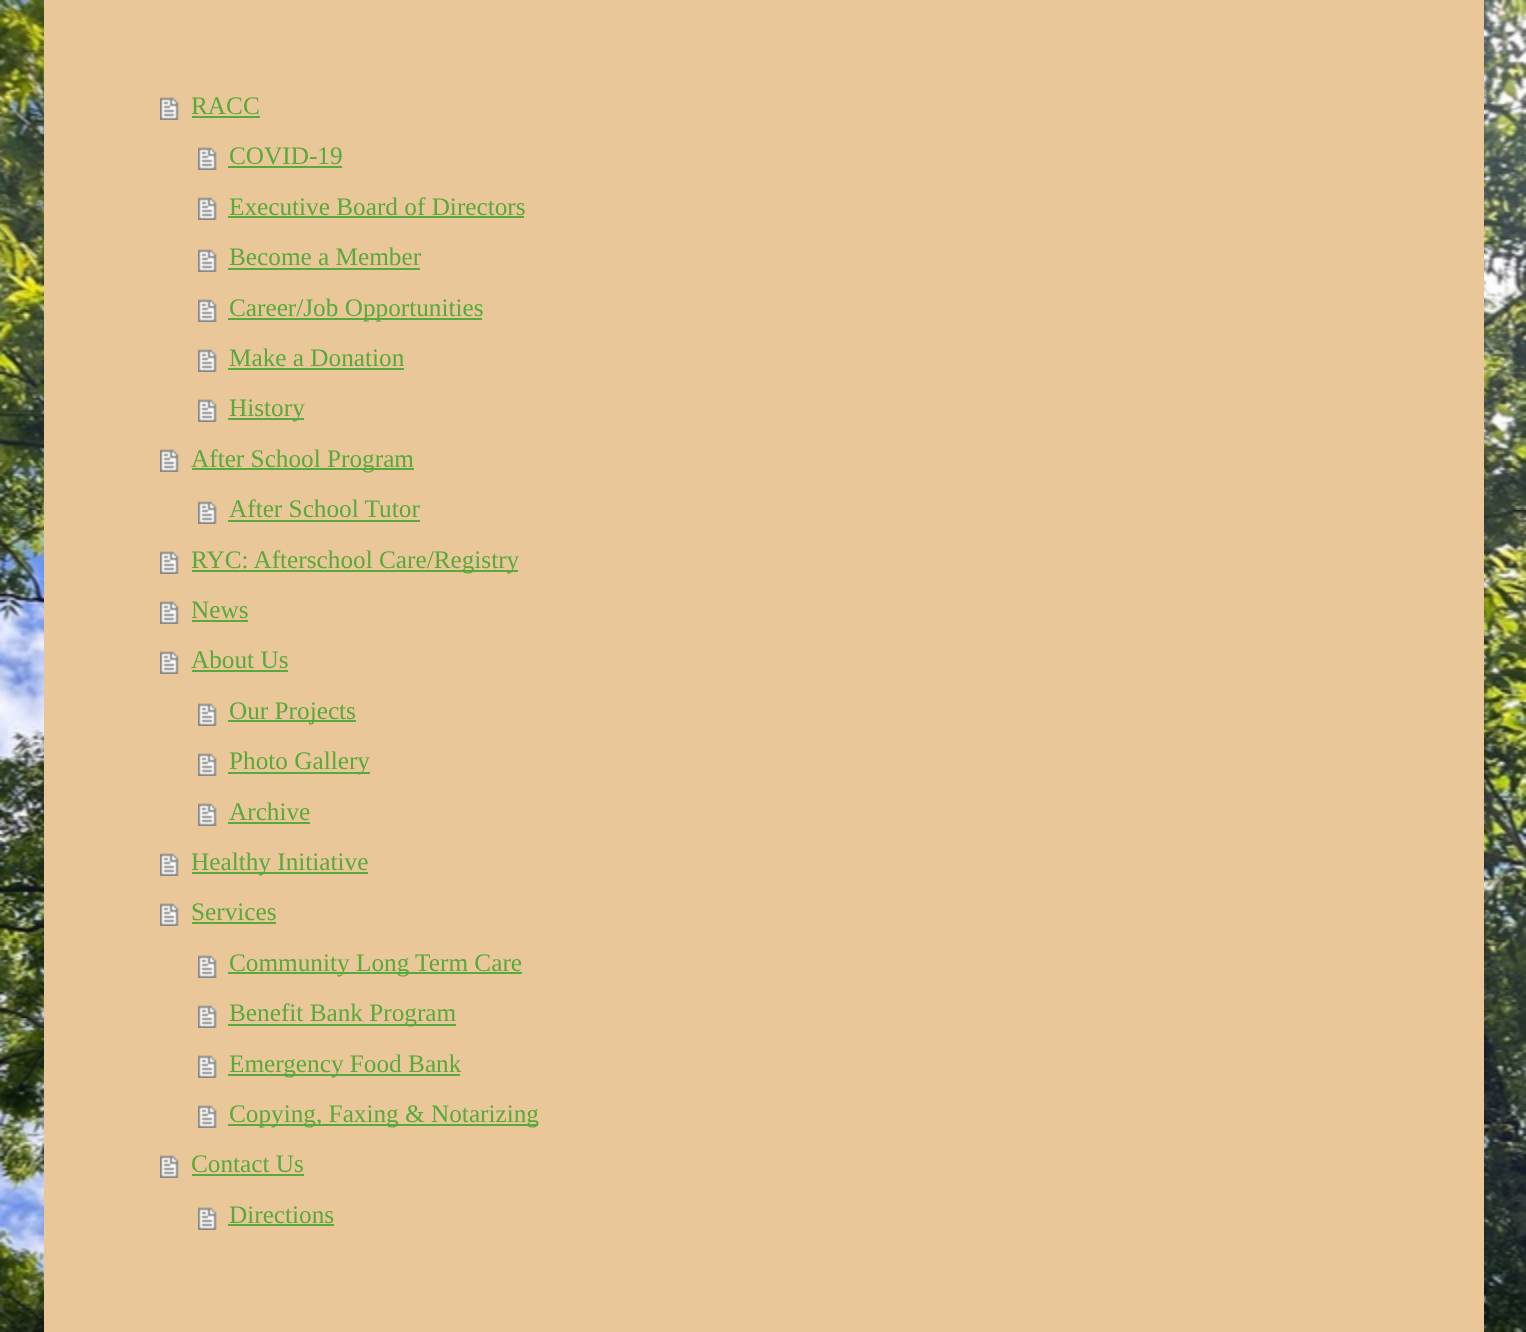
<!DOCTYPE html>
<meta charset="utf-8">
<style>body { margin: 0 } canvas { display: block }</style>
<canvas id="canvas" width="1526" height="1332"></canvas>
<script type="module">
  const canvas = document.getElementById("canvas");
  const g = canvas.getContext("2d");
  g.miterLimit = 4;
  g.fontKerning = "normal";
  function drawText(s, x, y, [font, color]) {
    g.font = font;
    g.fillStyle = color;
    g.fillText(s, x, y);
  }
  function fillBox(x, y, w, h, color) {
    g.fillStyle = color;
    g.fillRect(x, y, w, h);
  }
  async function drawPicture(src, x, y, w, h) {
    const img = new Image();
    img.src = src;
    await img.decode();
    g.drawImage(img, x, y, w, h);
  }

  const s1 = ["25.25px Liberation Serif", "#59A93C"];

  fillBox(0, 0, 1526, 1332, "#FFFFFF");
  await drawPicture("pic1.png", 0, 0, 1526, 1332);
  fillBox(44, 0, 1440, 1332, "#E9C798");
  await drawPicture("pic2.png", 160, 97, 19, 23);
  drawText("RACC", 191, 114, s1);
  fillBox(192, 116, 68, 2, "#59A93C");
  await drawPicture("pic2.png", 198, 147, 19, 23);
  drawText("COVID-19", 229, 164, s1);
  fillBox(228, 166, 114, 2, "#59A93C");
  await drawPicture("pic2.png", 198, 197, 19, 23);
  drawText("Executive Board of Directors", 229, 215, s1);
  fillBox(228, 216, 296, 2, "#59A93C");
  await drawPicture("pic2.png", 198, 249, 19, 23);
  drawText("Become a Member", 229, 265, s1);
  fillBox(228, 268, 192, 2, "#59A93C");
  await drawPicture("pic2.png", 198, 299, 19, 23);
  fillBox(228, 318, 254, 2, "#59A93C");
  drawText("Career/Job Opportunities", 229, 316, s1);
  await drawPicture("pic2.png", 198, 349, 19, 23);
  drawText("Make a Donation", 229, 366, s1);
  fillBox(228, 368, 176, 2, "#59A93C");
  await drawPicture("pic2.png", 198, 399, 19, 23);
  fillBox(228, 418, 76, 2, "#59A93C");
  drawText("History", 229, 416, s1);
  await drawPicture("pic2.png", 160, 449, 19, 23);
  fillBox(192, 468, 222, 2, "#59A93C");
  drawText("After School Program", 191, 467, s1);
  await drawPicture("pic2.png", 198, 501, 19, 23);
  drawText("After School Tutor", 229, 517, s1);
  fillBox(228, 520, 192, 2, "#59A93C");
  await drawPicture("pic2.png", 160, 551, 19, 23);
  fillBox(192, 570, 326, 2, "#59A93C");
  drawText("RYC: Afterschool Care/Registry", 191, 568, s1);
  await drawPicture("pic2.png", 160, 601, 19, 23);
  drawText("News", 191, 618, s1);
  fillBox(192, 620, 56, 2, "#59A93C");
  await drawPicture("pic2.png", 160, 651, 19, 23);
  drawText("About Us", 191, 668, s1);
  fillBox(192, 670, 96, 2, "#59A93C");
  await drawPicture("pic2.png", 198, 703, 19, 23);
  fillBox(228, 720, 128, 2, "#59A93C");
  drawText("Our Projects", 229, 719, s1);
  await drawPicture("pic2.png", 198, 753, 19, 23);
  fillBox(228, 772, 142, 2, "#59A93C");
  drawText("Photo Gallery", 229, 769, s1);
  await drawPicture("pic2.png", 198, 803, 19, 23);
  drawText("Archive", 229, 820, s1);
  fillBox(228, 822, 82, 2, "#59A93C");
  await drawPicture("pic2.png", 160, 853, 19, 23);
  fillBox(192, 872, 176, 2, "#59A93C");
  drawText("Healthy Initiative", 191, 870, s1);
  await drawPicture("pic2.png", 160, 903, 19, 23);
  drawText("Services", 191, 920, s1);
  fillBox(192, 922, 84, 2, "#59A93C");
  await drawPicture("pic2.png", 198, 955, 19, 23);
  fillBox(228, 972, 294, 2, "#59A93C");
  drawText("Community Long Term Care", 229, 971, s1);
  await drawPicture("pic2.png", 198, 1005, 19, 23);
  fillBox(228, 1024, 228, 2, "#59A93C");
  drawText("Benefit Bank Program", 229, 1021, s1);
  await drawPicture("pic2.png", 198, 1055, 19, 23);
  fillBox(228, 1074, 232, 2, "#59A93C");
  drawText("Emergency Food Bank", 229, 1072, s1);
  await drawPicture("pic2.png", 198, 1105, 19, 23);
  fillBox(228, 1124, 310, 2, "#59A93C");
  drawText("Copying, Faxing & Notarizing", 229, 1122, s1);
  await drawPicture("pic2.png", 160, 1155, 19, 23);
  drawText("Contact Us", 191, 1172, s1);
  fillBox(192, 1174, 112, 2, "#59A93C");
  await drawPicture("pic2.png", 198, 1207, 19, 23);
  drawText("Directions", 229, 1223, s1);
  fillBox(228, 1224, 106, 2, "#59A93C");
</script>
